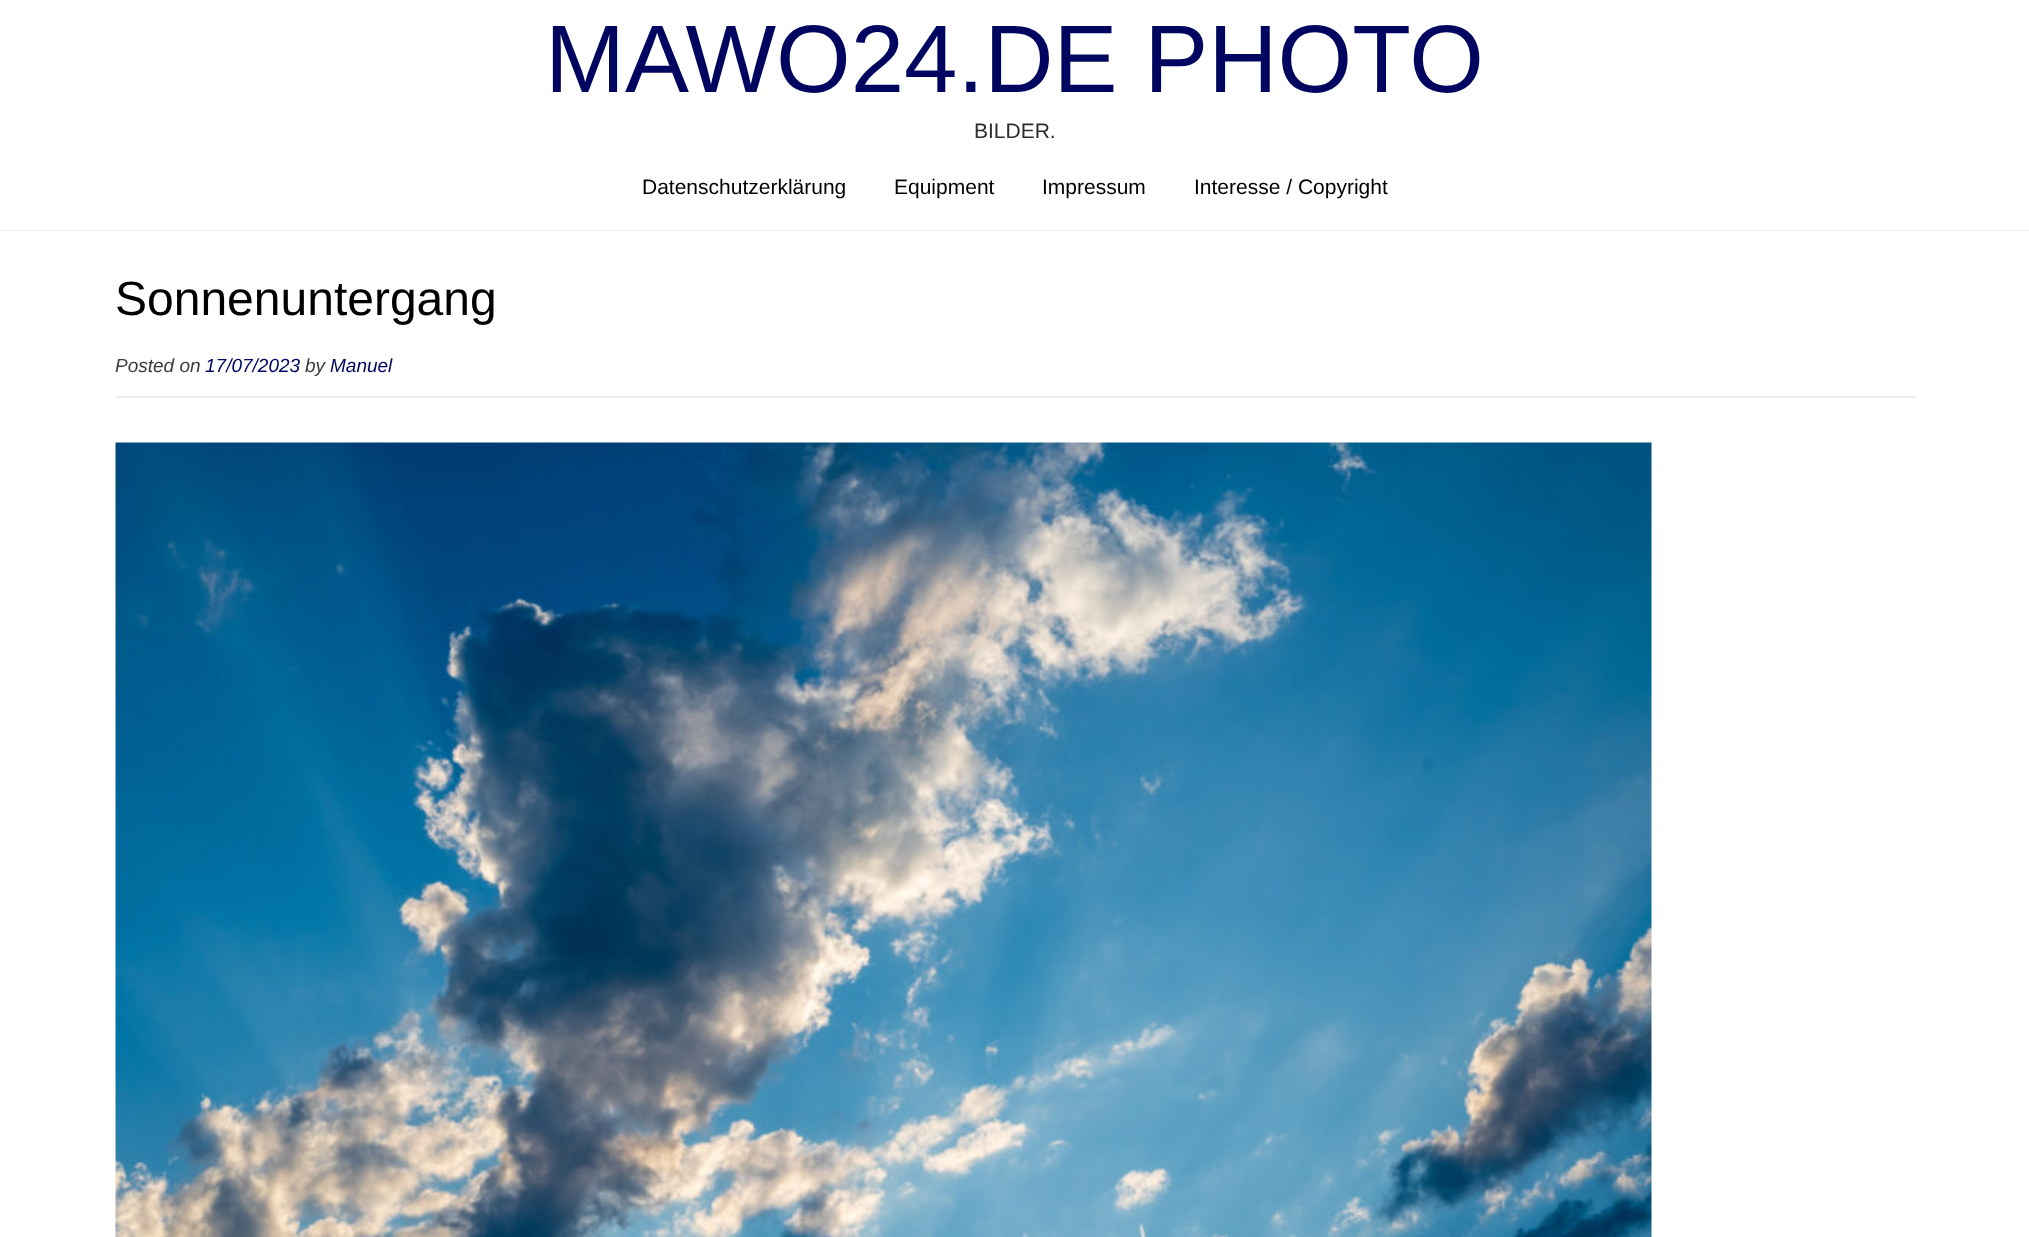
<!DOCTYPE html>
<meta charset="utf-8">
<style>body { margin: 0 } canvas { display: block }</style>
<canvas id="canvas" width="2029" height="1237"></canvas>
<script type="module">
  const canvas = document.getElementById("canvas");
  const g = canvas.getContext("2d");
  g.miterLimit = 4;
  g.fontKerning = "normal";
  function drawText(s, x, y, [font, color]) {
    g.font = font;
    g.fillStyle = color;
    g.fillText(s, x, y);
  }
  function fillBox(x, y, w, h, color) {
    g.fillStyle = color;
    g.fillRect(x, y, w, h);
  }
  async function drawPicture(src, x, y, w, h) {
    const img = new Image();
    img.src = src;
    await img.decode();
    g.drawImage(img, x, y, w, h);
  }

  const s1 = ["96px Liberation Sans", "#000660"];
  const s2 = ["21px Liberation Sans", "#2D2D2D"];
  const s3 = ["21px Liberation Sans", "#000000"];
  const s4 = ["48px Liberation Sans", "#000000"];
  const s5 = ["italic 19px Liberation Sans", "#3C3C3C"];
  const s6 = ["italic 19px Liberation Sans", "#000660"];

  fillBox(0, 0, 2029, 1237, "#FFFFFF");
  g.fillStyle = "#EBEBEB";
  g.beginPath();
  g.moveTo(0, 230);
  g.lineTo(0, 231);
  g.lineTo(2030, 231);
  g.lineTo(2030, 2);
  g.lineTo(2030, 230);
  g.closePath();
  g.fill();
  drawText("MAWO24.DE PHOTO", 545, 92, s1);
  drawText("BILDER.", 974, 138, s2);
  drawText("Datenschutzerklärung", 642, 194, s3);
  drawText("Equipment", 894, 194, s3);
  drawText("Impressum", 1042, 194, s3);
  drawText("Interesse / Copyright", 1194, 194, s3);
  fillBox(116, 396, 1800, 2, "#EBEBEB");
  drawText("Sonnenuntergang", 115, 315, s4);
  drawText("Posted on", 115, 372, s5);
  drawText("17/07/2023", 205, 372, s6);
  drawText("by", 305, 372, s5);
  drawText("Manuel", 330, 372, s6);
  await drawPicture("pic1.png", 115, 442, 1537, 795);
</script>
